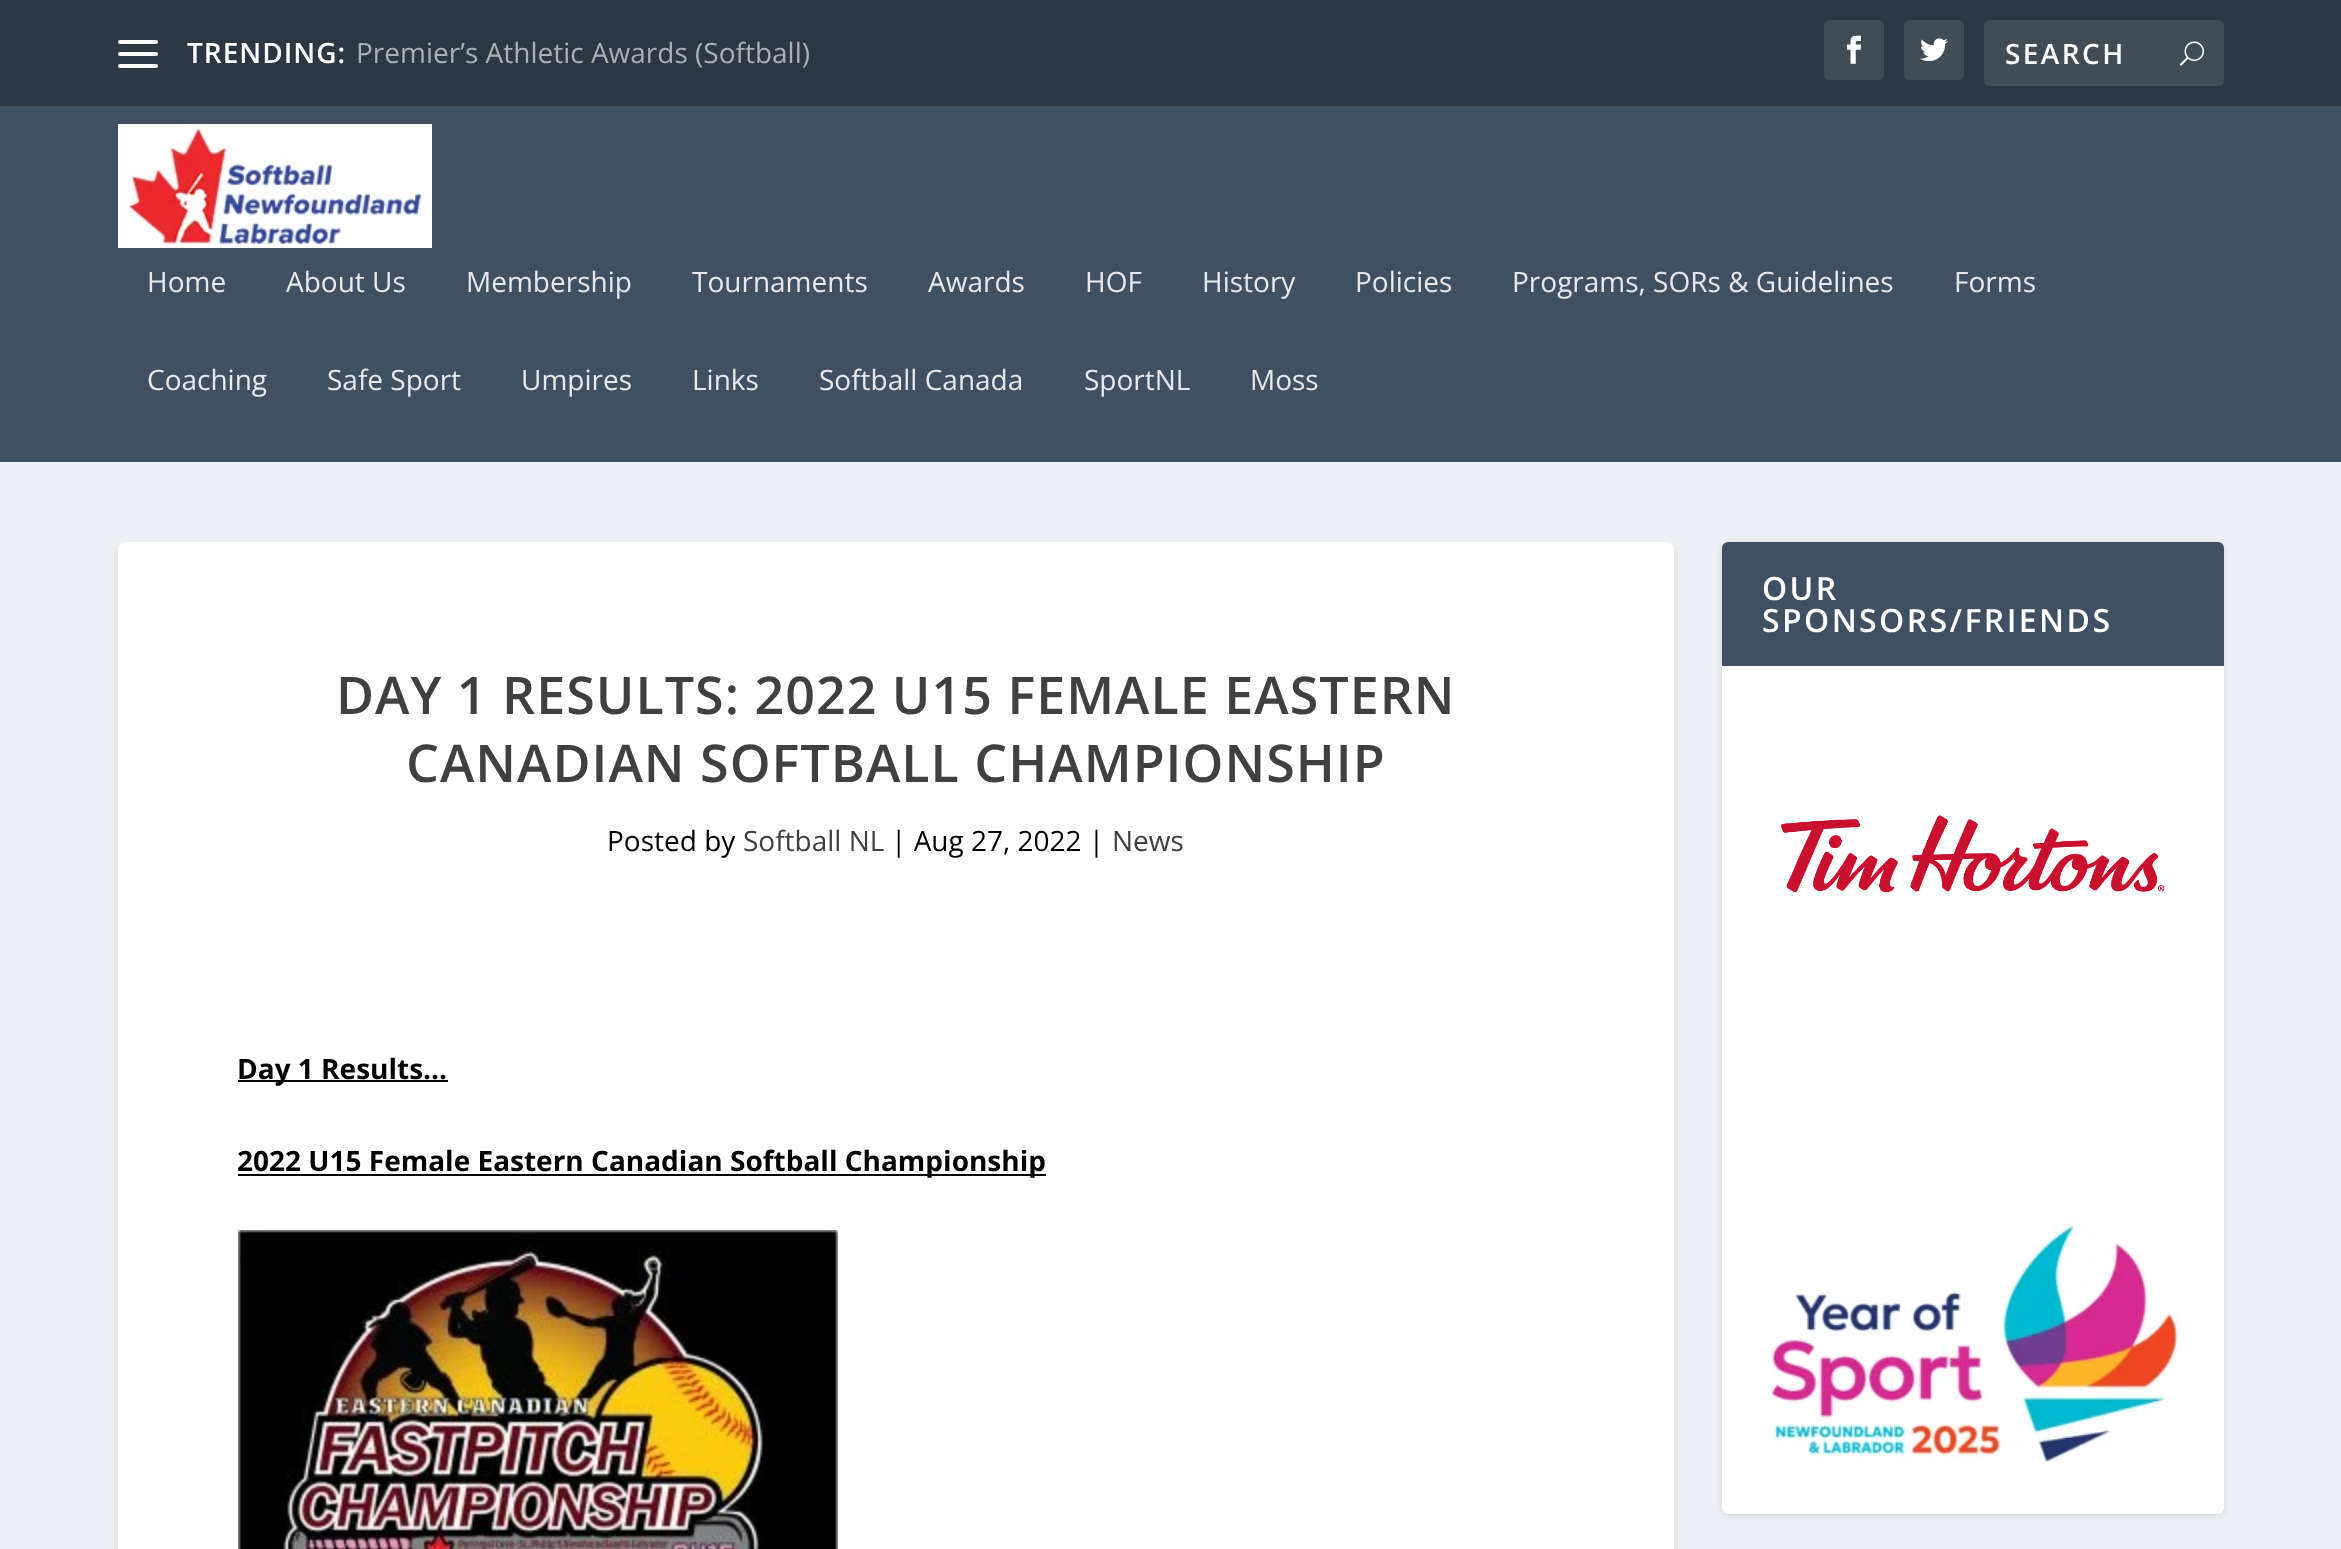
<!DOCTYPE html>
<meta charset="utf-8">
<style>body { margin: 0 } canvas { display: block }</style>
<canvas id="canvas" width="2341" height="1549"></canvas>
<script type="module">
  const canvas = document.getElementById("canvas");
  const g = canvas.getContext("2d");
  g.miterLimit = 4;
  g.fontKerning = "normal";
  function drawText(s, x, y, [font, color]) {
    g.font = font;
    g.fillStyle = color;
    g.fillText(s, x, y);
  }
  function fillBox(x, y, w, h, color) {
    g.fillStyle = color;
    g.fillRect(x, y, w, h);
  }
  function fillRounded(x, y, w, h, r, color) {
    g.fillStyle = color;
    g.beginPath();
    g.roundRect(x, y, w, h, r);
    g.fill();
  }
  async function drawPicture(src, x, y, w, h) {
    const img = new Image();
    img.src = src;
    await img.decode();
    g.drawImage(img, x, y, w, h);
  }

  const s1 = ["600 28px Open Sans", "#FFFFFF"];
  const s2 = ["28px Open Sans", "#AAAFB4"];
  const s3 = ["28px Open Sans", "#E6E8EB"];
  const s4 = ["600 32px Open Sans", "#FFFFFF"];
  const s5 = ["600 52px Open Sans", "#404040"];
  const s6 = ["28px Open Sans", "#000000"];
  const s7 = ["28px Open Sans", "#404040"];
  const s8 = ["bold 28px Open Sans", "#000000"];

  fillBox(0, 0, 2341, 1549, "#ECF0F5");
  fillBox(0, 0, 2341, 106, "#2B3843");
  fillRounded(118, 40, 40, 4, 2, "#FFFFFF");
  fillRounded(118, 52, 40, 4, 2, "#FFFFFF");
  fillRounded(118, 64, 40, 4, 2, "#FFFFFF");
  g.letterSpacing = "1px";
  drawText("TRENDING:", 187, 63, s1);
  g.letterSpacing = "0px";
  drawText("Premier’s Athletic Awards (Softball)", 356, 63, s2);
  fillRounded(1824, 20, 60, 60, 6, "#404C56");
  await drawPicture("pic1.png", 1847, 35, 15, 29);
  fillRounded(1904, 20, 60, 60, 6, "#404C56");
  await drawPicture("pic2.png", 1920, 38, 28, 24);
  fillRounded(1984, 20, 240, 66, 6, "#404C56");
  g.letterSpacing = "2.4px";
  drawText("SEARCH", 2005, 64, s1);
  await drawPicture("pic3.png", 2179, 41, 25, 25);
  fillBox(0, 106, 2341, 356, "#3E5062");
  await drawPicture("pic4.png", 118, 124, 314, 124);
  g.letterSpacing = "0px";
  drawText("Home", 147, 292, s3);
  drawText("About Us", 286, 292, s3);
  drawText("Membership", 466, 292, s3);
  drawText("Tournaments", 692, 292, s3);
  drawText("Awards", 928, 292, s3);
  drawText("HOF", 1085, 292, s3);
  drawText("History", 1202, 292, s3);
  drawText("Policies", 1355, 292, s3);
  drawText("Programs, SORs & Guidelines", 1512, 292, s3);
  drawText("Forms", 1954, 292, s3);
  drawText("Coaching", 147, 390, s3);
  drawText("Safe Sport", 327, 390, s3);
  drawText("Umpires", 521, 390, s3);
  drawText("Links", 692, 390, s3);
  drawText("Softball Canada", 819, 390, s3);
  drawText("SportNL", 1084, 390, s3);
  drawText("Moss", 1250, 390, s3);
  g.fillStyle = "rgba(0, 0, 0, 0.1)";
  g.filter = "blur(3px)";
  g.beginPath();
  g.roundRect(1722, 544, 502, 972, 6);
  g.fill();
  g.filter = "none";
  fillRounded(1722, 542, 502, 972, 6, "#FFFFFF");
  g.fillStyle = "#3E5062";
  g.beginPath();
  g.roundRect(1722, 542, 502, 124, [6, 6, 0, 0]);
  g.fill();
  g.letterSpacing = "2.4px";
  drawText("OUR", 1762, 600, s4);
  drawText("SPONSORS/FRIENDS", 1762, 632, s4);
  await drawPicture("pic5.png", 1781, 815, 384, 78);
  await drawPicture("pic6.png", 1768, 1222, 411, 241);
  g.fillStyle = "rgba(0, 0, 0, 0.1)";
  g.filter = "blur(3px)";
  g.beginPath();
  g.roundRect(118, 544, 1556, 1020, 6);
  g.fill();
  g.filter = "none";
  fillRounded(118, 542, 1556, 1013, 6, "#FFFFFF");
  g.letterSpacing = "1px";
  drawText("DAY 1 RESULTS: 2022 U15 FEMALE EASTERN", 336, 714, s5);
  drawText("CANADIAN SOFTBALL CHAMPIONSHIP", 406, 782, s5);
  g.letterSpacing = "0px";
  drawText("Posted by", 607, 851, s6);
  drawText("Softball NL", 743, 851, s7);
  drawText("| Aug 27, 2022 |", 891, 851, s6);
  drawText("News", 1112, 851, s7);
  fillBox(238, 1080, 210, 2, "#000000");
  drawText("Day 1 Results…", 237, 1079, s8);
  fillBox(238, 1174, 808, 2, "#000000");
  drawText("2022 U15 Female Eastern Canadian Softball Championship", 237, 1171, s8);
  await drawPicture("pic7.png", 238, 1230, 600, 319);
</script>
